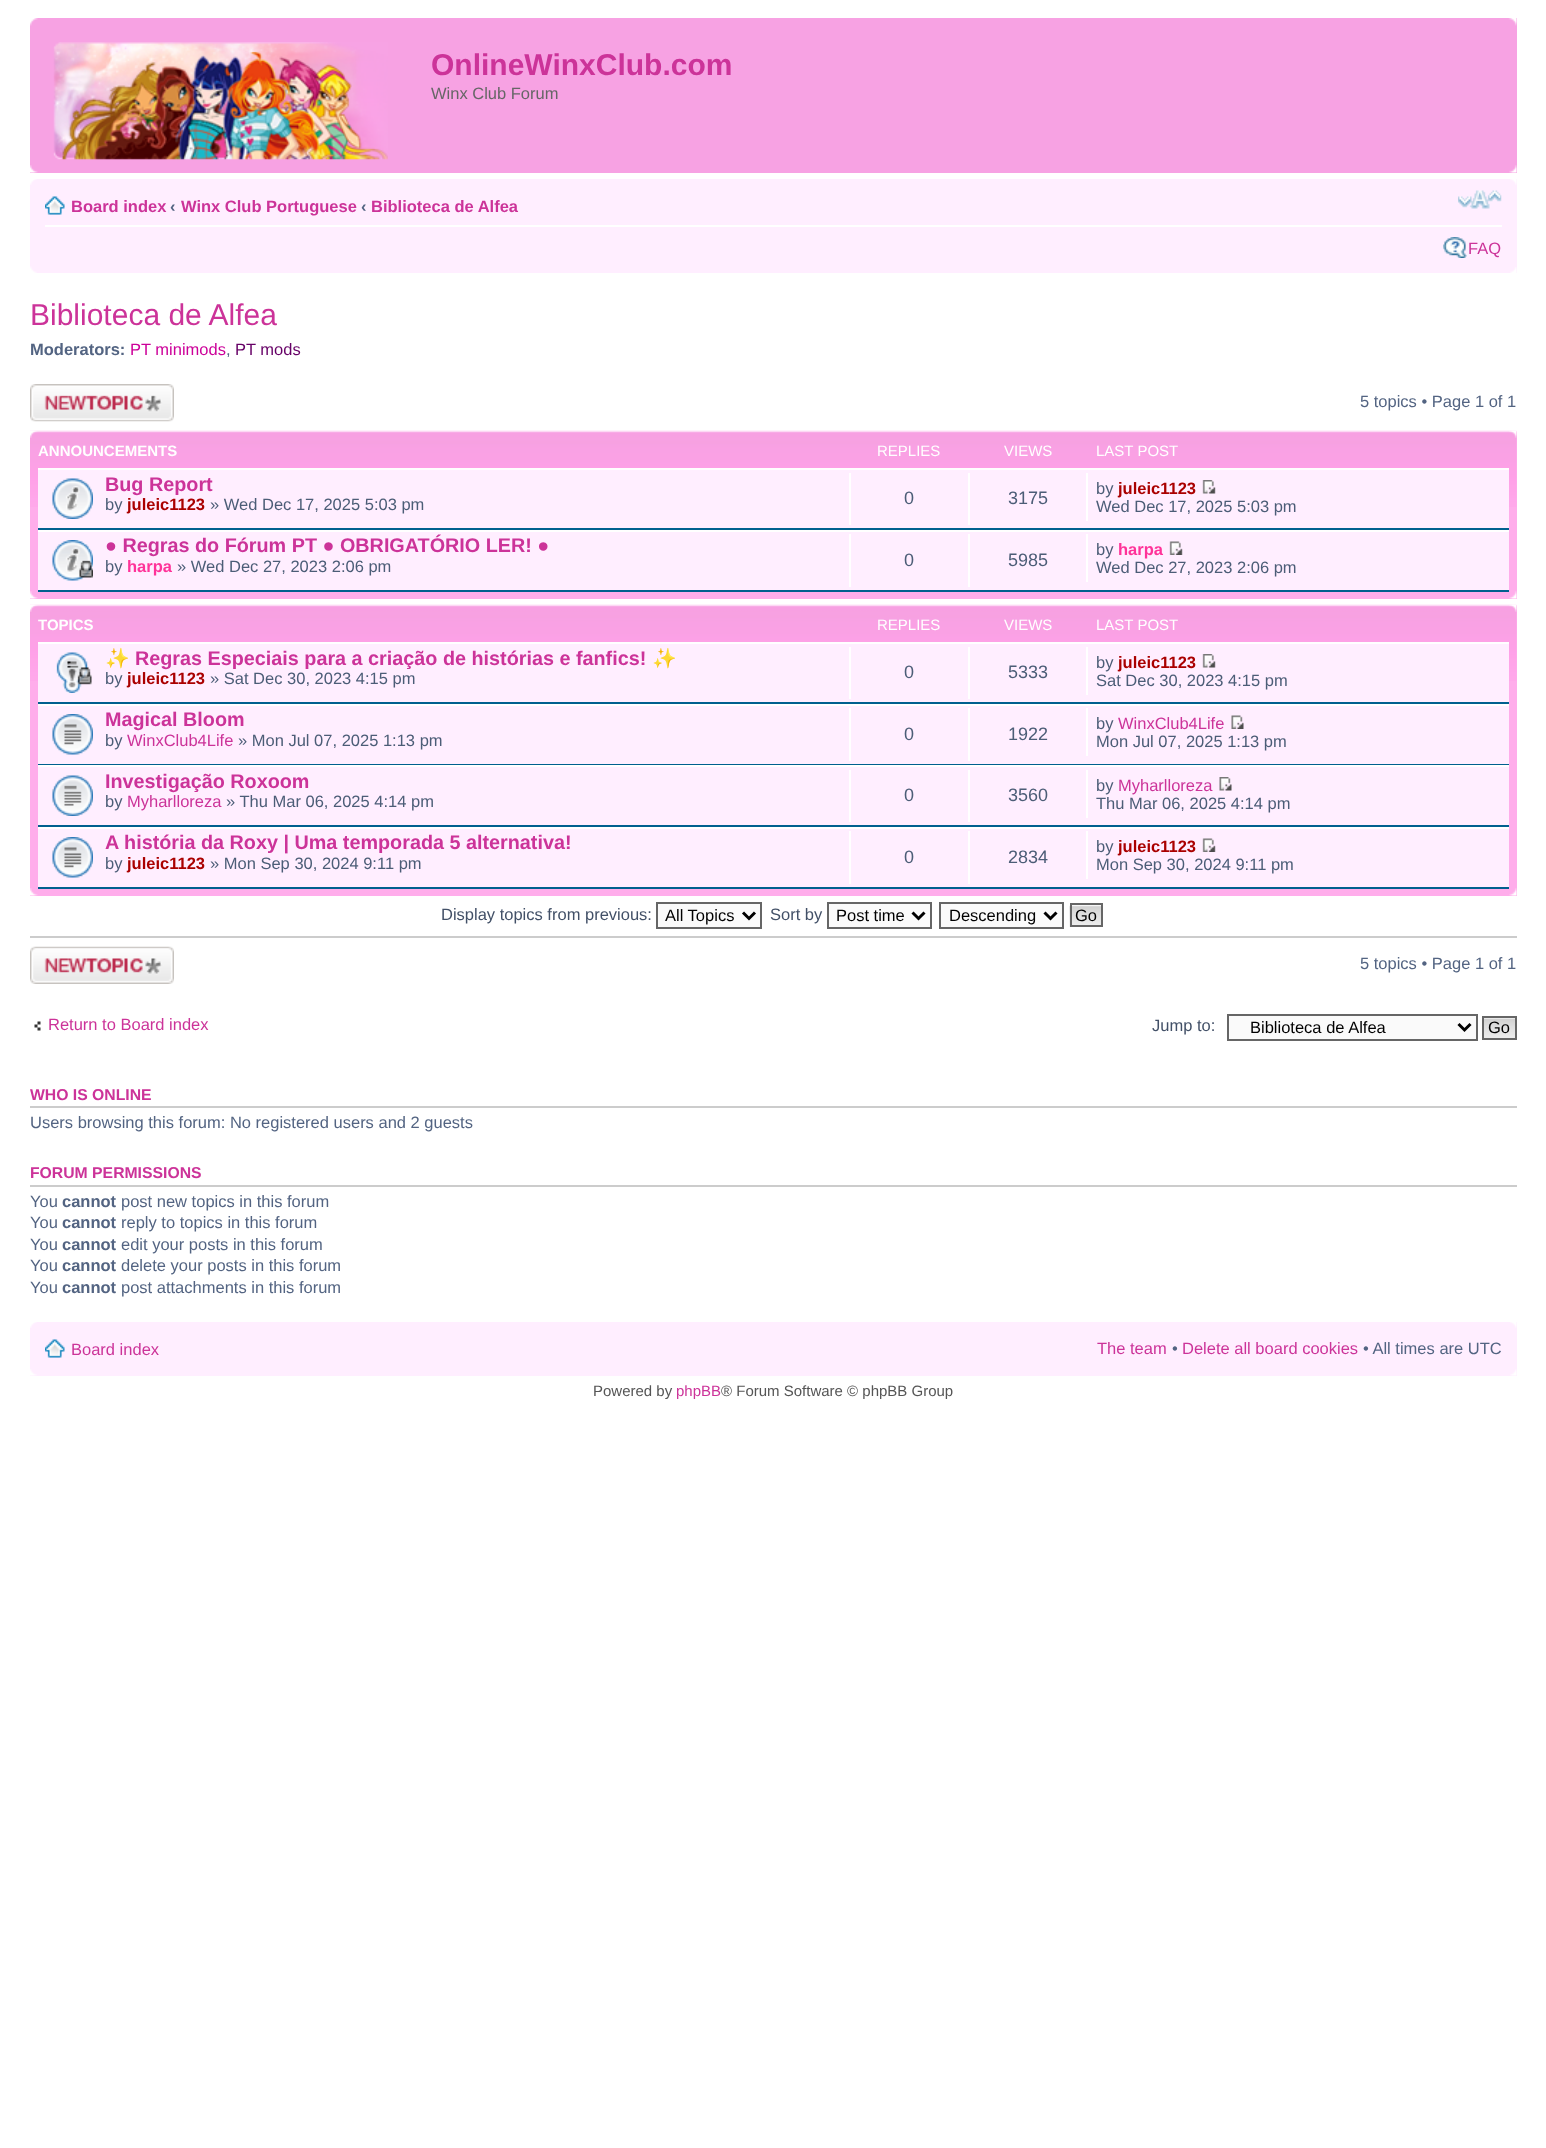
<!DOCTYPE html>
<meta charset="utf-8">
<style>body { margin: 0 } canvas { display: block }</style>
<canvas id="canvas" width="1546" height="2148"></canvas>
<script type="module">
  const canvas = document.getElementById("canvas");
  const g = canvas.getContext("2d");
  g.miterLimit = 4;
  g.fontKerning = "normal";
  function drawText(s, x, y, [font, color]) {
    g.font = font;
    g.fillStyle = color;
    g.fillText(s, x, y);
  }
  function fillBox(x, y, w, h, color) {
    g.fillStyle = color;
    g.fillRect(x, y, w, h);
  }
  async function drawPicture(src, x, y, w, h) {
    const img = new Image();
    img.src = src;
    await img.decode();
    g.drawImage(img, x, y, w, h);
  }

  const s1 = ["bold 30px Liberation Sans", "#CC3399"];
  const s2 = ["16.5px Liberation Sans", "#666666"];
  const s3 = ["bold 16.5px Liberation Sans", "#CC3399"];
  const s4 = ["bold 16.5px Liberation Sans", "#536482"];
  const s5 = ["16.5px Liberation Sans", "#CC3399"];
  const s6 = ["30px Liberation Sans", "#CC3399"];
  const s7 = ["16.5px Liberation Sans", "#CC0099"];
  const s8 = ["16.5px Liberation Sans", "#536482"];
  const s9 = ["16.5px Liberation Sans", "#660066"];
  const s10 = ["bold 15px Liberation Sans", "#FFFFFF"];
  const s11 = ["15px Liberation Sans", "#FFFFFF"];
  const s12 = ["bold 19.8px Liberation Sans", "#CC3399"];
  const s13 = ["16.5px Liberation Sans", "#4C5D77"];
  const s14 = ["bold 16.5px Liberation Sans", "#AA0000"];
  const s15 = ["18px Liberation Sans", "#4C5D77"];
  const s16 = ["bold 16.5px Liberation Sans", "#FF3399"];
  const s17 = ["bold 19.8px Noto Color Emoji", "#CC3399"];
  const s18 = ["16.5px Liberation Sans", "#425067"];
  const s19 = ["16.5px Liberation Sans", "#000000"];
  const s20 = ["bold 15.75px Liberation Sans", "#CC3399"];
  const s21 = ["15px Liberation Sans", "#555555"];
  const s22 = ["15px Liberation Sans", "#CC3399"];

  fillBox(0, 0, 1546, 2148, "#FFFFFF");
  fillBox(30, 18, 1487, 155, "#F7A2E3");
  await drawPicture("pic1.png", 30, 18, 8, 8);
  await drawPicture("pic2.png", 1508, 18, 9, 8);
  await drawPicture("pic3.png", 53, 42, 335, 118);
  drawText("OnlineWinxClub.com", 431, 75, s1);
  drawText("Winx Club Forum", 431, 99, s2);
  await drawPicture("pic4.png", 30, 165, 8, 8);
  await drawPicture("pic5.png", 1509, 165, 8, 8);
  fillBox(30, 179, 1487, 94, "#FFEEFF");
  await drawPicture("pic6.png", 30, 179, 7, 6);
  await drawPicture("pic7.png", 1510, 179, 7, 6);
  fillBox(45, 225, 1457, 2, "#FFFFFF");
  await drawPicture("pic8.png", 45, 196, 20, 19);
  drawText("Board index", 71, 212, s3);
  drawText("‹", 170, 212, s4);
  drawText("Winx Club Portuguese", 181, 212, s3);
  drawText("‹", 361, 212, s4);
  drawText("Biblioteca de Alfea", 371, 212, s3);
  await drawPicture("pic9.png", 1458, 190, 44, 19);
  await drawPicture("pic10.png", 1443, 237, 24, 21);
  drawText("FAQ", 1468, 254, s5);
  await drawPicture("pic11.png", 30, 266, 7, 7);
  await drawPicture("pic12.png", 1510, 267, 7, 6);
  drawText("Biblioteca de Alfea", 30, 325, s6);
  drawText("Moderators:", 30, 355, s4);
  drawText("PT minimods", 130, 355, s7);
  drawText(",", 226, 355, s8);
  drawText("PT mods", 235, 355, s9);
  await drawPicture("pic13.png", 30, 384, 144, 38);
  drawText("5 topics • Page 1 of 1", 1360, 407, s8);
  fillBox(30, 431, 1487, 168, "#FFADEB");
  await drawPicture("pic14.png", 30, 430, 1487, 77);
  await drawPicture("pic15.png", 30, 430, 8, 8);
  await drawPicture("pic16.png", 1509, 430, 8, 8);
  drawText("ANNOUNCEMENTS", 38, 456, s10);
  drawText("REPLIES", 877, 456, s11);
  drawText("VIEWS", 1004, 456, s11);
  drawText("LAST POST", 1096, 456, s11);
  fillBox(38, 470, 1471, 58, "#FFEEFF");
  fillBox(38, 468, 1471, 2, "#FFFFFF");
  fillBox(38, 528, 1471, 2, "#00608F");
  await drawPicture("pic17.png", 52, 478, 41, 41);
  drawText("Bug Report", 105, 491, s12);
  drawText("by", 105, 510, s13);
  drawText("juleic1123", 127, 510, s14);
  drawText("» Wed Dec 17, 2025 5:03 pm", 210, 510, s13);
  fillBox(849, 473, 2, 52, "#FFFFFF");
  drawText("0", 904, 504, s15);
  fillBox(968, 473, 2, 52, "#FFFFFF");
  drawText("3175", 1008, 504, s15);
  fillBox(1086, 473, 2, 48, "#FFFFFF");
  drawText("by", 1096, 494, s13);
  drawText("juleic1123", 1118, 494, s14);
  await drawPicture("pic18.png", 1202, 480, 14, 14);
  drawText("Wed Dec 17, 2025 5:03 pm", 1096, 512, s13);
  fillBox(38, 532, 1471, 58, "#FFEEFF");
  fillBox(38, 530, 1471, 2, "#FFFFFF");
  fillBox(38, 590, 1471, 2, "#00608F");
  await drawPicture("pic19.png", 52, 540, 41, 41);
  drawText("● Regras do Fórum PT ● OBRIGATÓRIO LER! ●", 105, 552, s12);
  drawText("by", 105, 572, s13);
  drawText("harpa", 127, 572, s16);
  drawText("» Wed Dec 27, 2023 2:06 pm", 177, 572, s13);
  fillBox(849, 534, 2, 53, "#FFFFFF");
  drawText("0", 904, 566, s15);
  fillBox(968, 534, 2, 53, "#FFFFFF");
  drawText("5985", 1008, 566, s15);
  fillBox(1086, 534, 2, 48, "#FFFFFF");
  drawText("by", 1096, 555, s13);
  drawText("harpa", 1118, 555, s16);
  await drawPicture("pic20.png", 1169, 541, 14, 14);
  drawText("Wed Dec 27, 2023 2:06 pm", 1096, 573, s13);
  await drawPicture("pic21.png", 30, 591, 8, 8);
  await drawPicture("pic22.png", 1509, 591, 8, 8);
  fillBox(30, 605, 1487, 291, "#FFADEB");
  await drawPicture("pic23.png", 30, 604, 1487, 77);
  await drawPicture("pic24.png", 30, 604, 8, 8);
  await drawPicture("pic25.png", 1509, 604, 8, 8);
  g.save();
  g.beginPath();
  g.rect(38, 612, 1471, 30);
  g.clip();
  drawText("TOPICS", 38, 630, s10);
  g.restore();
  drawText("REPLIES", 877, 630, s11);
  drawText("VIEWS", 1004, 630, s11);
  drawText("LAST POST", 1096, 630, s11);
  fillBox(38, 644, 1471, 58, "#FFEEFF");
  fillBox(38, 642, 1471, 2, "#FFFFFF");
  fillBox(38, 702, 1471, 2, "#00608F");
  await drawPicture("pic26.png", 55, 652, 37, 41);
  drawText("✨", 105, 665, s17);
  drawText("Regras Especiais para a criação de histórias e fanfics!", 135, 665, s12);
  drawText("✨", 652, 665, s17);
  drawText("by", 105, 684, s13);
  drawText("juleic1123", 127, 684, s14);
  drawText("» Sat Dec 30, 2023 4:15 pm", 210, 684, s13);
  fillBox(849, 647, 2, 52, "#FFFFFF");
  drawText("0", 904, 678, s15);
  fillBox(968, 647, 2, 52, "#FFFFFF");
  drawText("5333", 1008, 678, s15);
  fillBox(1086, 647, 2, 48, "#FFFFFF");
  drawText("by", 1096, 668, s13);
  drawText("juleic1123", 1118, 668, s14);
  await drawPicture("pic18.png", 1202, 654, 14, 14);
  drawText("Sat Dec 30, 2023 4:15 pm", 1096, 686, s13);
  fillBox(38, 706, 1471, 58, "#FFEEFF");
  fillBox(38, 704, 1471, 2, "#FFFFFF");
  fillBox(38, 764, 1471, 1, "#00608F");
  await drawPicture("pic27.png", 52, 714, 41, 41);
  drawText("Magical Bloom", 105, 726, s12);
  drawText("by", 105, 746, s13);
  drawText("WinxClub4Life", 127, 746, s5);
  drawText("» Mon Jul 07, 2025 1:13 pm", 238, 746, s13);
  fillBox(849, 708, 2, 53, "#FFFFFF");
  drawText("0", 904, 740, s15);
  fillBox(968, 708, 2, 53, "#FFFFFF");
  drawText("1922", 1008, 740, s15);
  fillBox(1086, 708, 2, 48, "#FFFFFF");
  drawText("by", 1096, 729, s13);
  drawText("WinxClub4Life", 1118, 729, s5);
  await drawPicture("pic28.png", 1231, 715, 13, 14);
  drawText("Mon Jul 07, 2025 1:13 pm", 1096, 747, s13);
  fillBox(38, 767, 1471, 58, "#FFEEFF");
  fillBox(38, 765, 1471, 2, "#FFFFFF");
  fillBox(38, 825, 1471, 2, "#00608F");
  await drawPicture("pic29.png", 52, 775, 41, 41);
  drawText("Investigação Roxoom", 105, 788, s12);
  drawText("by", 105, 807, s13);
  drawText("Myharlloreza", 127, 807, s5);
  drawText("» Thu Mar 06, 2025 4:14 pm", 226, 807, s13);
  fillBox(849, 770, 2, 52, "#FFFFFF");
  drawText("0", 904, 801, s15);
  fillBox(968, 770, 2, 52, "#FFFFFF");
  drawText("3560", 1008, 801, s15);
  fillBox(1086, 770, 2, 48, "#FFFFFF");
  drawText("by", 1096, 791, s13);
  drawText("Myharlloreza", 1118, 791, s5);
  await drawPicture("pic30.png", 1219, 777, 13, 14);
  drawText("Thu Mar 06, 2025 4:14 pm", 1096, 809, s13);
  fillBox(38, 829, 1471, 58, "#FFEEFF");
  fillBox(38, 827, 1471, 2, "#FFFFFF");
  fillBox(38, 887, 1471, 2, "#00608F");
  await drawPicture("pic27.png", 52, 837, 41, 41);
  drawText("A história da Roxy | Uma temporada 5 alternativa!", 105, 849, s12);
  drawText("by", 105, 869, s13);
  drawText("juleic1123", 127, 869, s14);
  drawText("» Mon Sep 30, 2024 9:11 pm", 210, 869, s13);
  fillBox(849, 831, 2, 53, "#FFFFFF");
  drawText("0", 904, 863, s15);
  fillBox(968, 831, 2, 53, "#FFFFFF");
  drawText("2834", 1008, 863, s15);
  fillBox(1086, 831, 2, 48, "#FFFFFF");
  drawText("by", 1096, 852, s13);
  drawText("juleic1123", 1118, 852, s14);
  await drawPicture("pic20.png", 1202, 838, 14, 14);
  drawText("Mon Sep 30, 2024 9:11 pm", 1096, 870, s13);
  await drawPicture("pic21.png", 30, 888, 8, 8);
  await drawPicture("pic22.png", 1509, 888, 8, 8);
  drawText("Display topics from previous:", 441, 920, s18);
  g.fillStyle = "#FAFAFA";
  g.beginPath();
  g.rect(657, 903, 104, 25);
  g.fill();
  g.strokeStyle = "#666666";
  g.lineWidth = 2;
  g.stroke();
  g.beginPath();
  g.moveTo(743, 912.5);
  g.lineTo(749, 918.5);
  g.lineTo(755, 912.5);
  g.strokeStyle = "#000000";
  g.lineWidth = 3;
  g.stroke();
  drawText("All Topics", 665, 921, s19);
  drawText("Sort by", 770, 920, s18);
  g.fillStyle = "#FAFAFA";
  g.beginPath();
  g.rect(828, 903, 103, 25);
  g.fill();
  g.strokeStyle = "#666666";
  g.lineWidth = 2;
  g.stroke();
  g.beginPath();
  g.moveTo(912.5, 912.5);
  g.lineTo(918.5, 918.5);
  g.lineTo(924.5, 912.5);
  g.strokeStyle = "#000000";
  g.lineWidth = 3;
  g.stroke();
  drawText("Post time", 836, 921, s19);
  g.fillStyle = "#FAFAFA";
  g.beginPath();
  g.rect(940, 903, 123, 25);
  g.fill();
  g.strokeStyle = "#666666";
  g.lineWidth = 2;
  g.stroke();
  g.beginPath();
  g.moveTo(1044.5, 912.5);
  g.lineTo(1050.5, 918.5);
  g.lineTo(1056.5, 912.5);
  g.strokeStyle = "#000000";
  g.lineWidth = 3;
  g.stroke();
  drawText("Descending", 949, 921, s19);
  await drawPicture("pic31.png", 1069, 905, 32, 22);
  g.strokeStyle = "#666666";
  g.lineWidth = 2;
  g.strokeRect(1071, 904, 31, 22);
  drawText("Go", 1075, 921, s19);
  fillBox(30, 936, 1487, 2, "#CCCCCC");
  await drawPicture("pic32.png", 30, 946, 144, 38);
  drawText("5 topics • Page 1 of 1", 1360, 969, s8);
  await drawPicture("pic33.png", 34, 1021, 7, 10);
  drawText("Return to Board index", 48, 1030, s5);
  drawText("Jump to:", 1152, 1031, s18);
  g.fillStyle = "#FAFAFA";
  g.beginPath();
  g.rect(1228, 1015, 249, 25);
  g.fill();
  g.stroke();
  g.beginPath();
  g.moveTo(1458.5, 1024);
  g.lineTo(1464.5, 1030);
  g.lineTo(1470.5, 1024);
  g.strokeStyle = "#000000";
  g.lineWidth = 3;
  g.stroke();
  drawText("Biblioteca de Alfea", 1250, 1033, s19);
  await drawPicture("pic34.png", 1484, 1018, 31, 20);
  g.strokeStyle = "#666666";
  g.lineWidth = 2;
  g.strokeRect(1483, 1017, 33, 22);
  drawText("Go", 1488, 1033, s19);
  fillBox(30, 1106, 1487, 2, "#CCCCCC");
  drawText("WHO IS ONLINE", 30, 1100, s20);
  drawText("Users browsing this forum: No registered users and 2 guests", 30, 1128, s8);
  fillBox(30, 1185, 1487, 2, "#CCCCCC");
  drawText("FORUM PERMISSIONS", 30, 1178, s20);
  drawText("You", 30, 1207, s8);
  drawText("cannot", 62, 1207, s4);
  drawText("post new topics in this forum", 121, 1207, s8);
  drawText("You", 30, 1228, s8);
  drawText("cannot", 62, 1228, s4);
  drawText("reply to topics in this forum", 121, 1228, s8);
  drawText("You", 30, 1250, s8);
  drawText("cannot", 62, 1250, s4);
  drawText("edit your posts in this forum", 121, 1250, s8);
  drawText("You", 30, 1271, s8);
  drawText("cannot", 62, 1271, s4);
  drawText("delete your posts in this forum", 121, 1271, s8);
  drawText("You", 30, 1293, s8);
  drawText("cannot", 62, 1293, s4);
  drawText("post attachments in this forum", 121, 1293, s8);
  fillBox(30, 1322, 1487, 54, "#FFEEFF");
  await drawPicture("pic6.png", 30, 1322, 7, 6);
  await drawPicture("pic7.png", 1510, 1322, 7, 6);
  await drawPicture("pic8.png", 45, 1339, 20, 19);
  drawText("Board index", 71, 1355, s5);
  drawText("The team", 1097, 1354, s5);
  drawText("•", 1172, 1354, s8);
  drawText("Delete all board cookies", 1182, 1354, s5);
  drawText("• All times are UTC", 1363, 1354, s8);
  await drawPicture("pic35.png", 30, 1369, 7, 7);
  await drawPicture("pic36.png", 1510, 1369, 7, 7);
  drawText("Powered by", 593, 1396, s21);
  drawText("phpBB", 676, 1396, s22);
  drawText("® Forum Software © phpBB Group", 721, 1396, s21);
</script>
